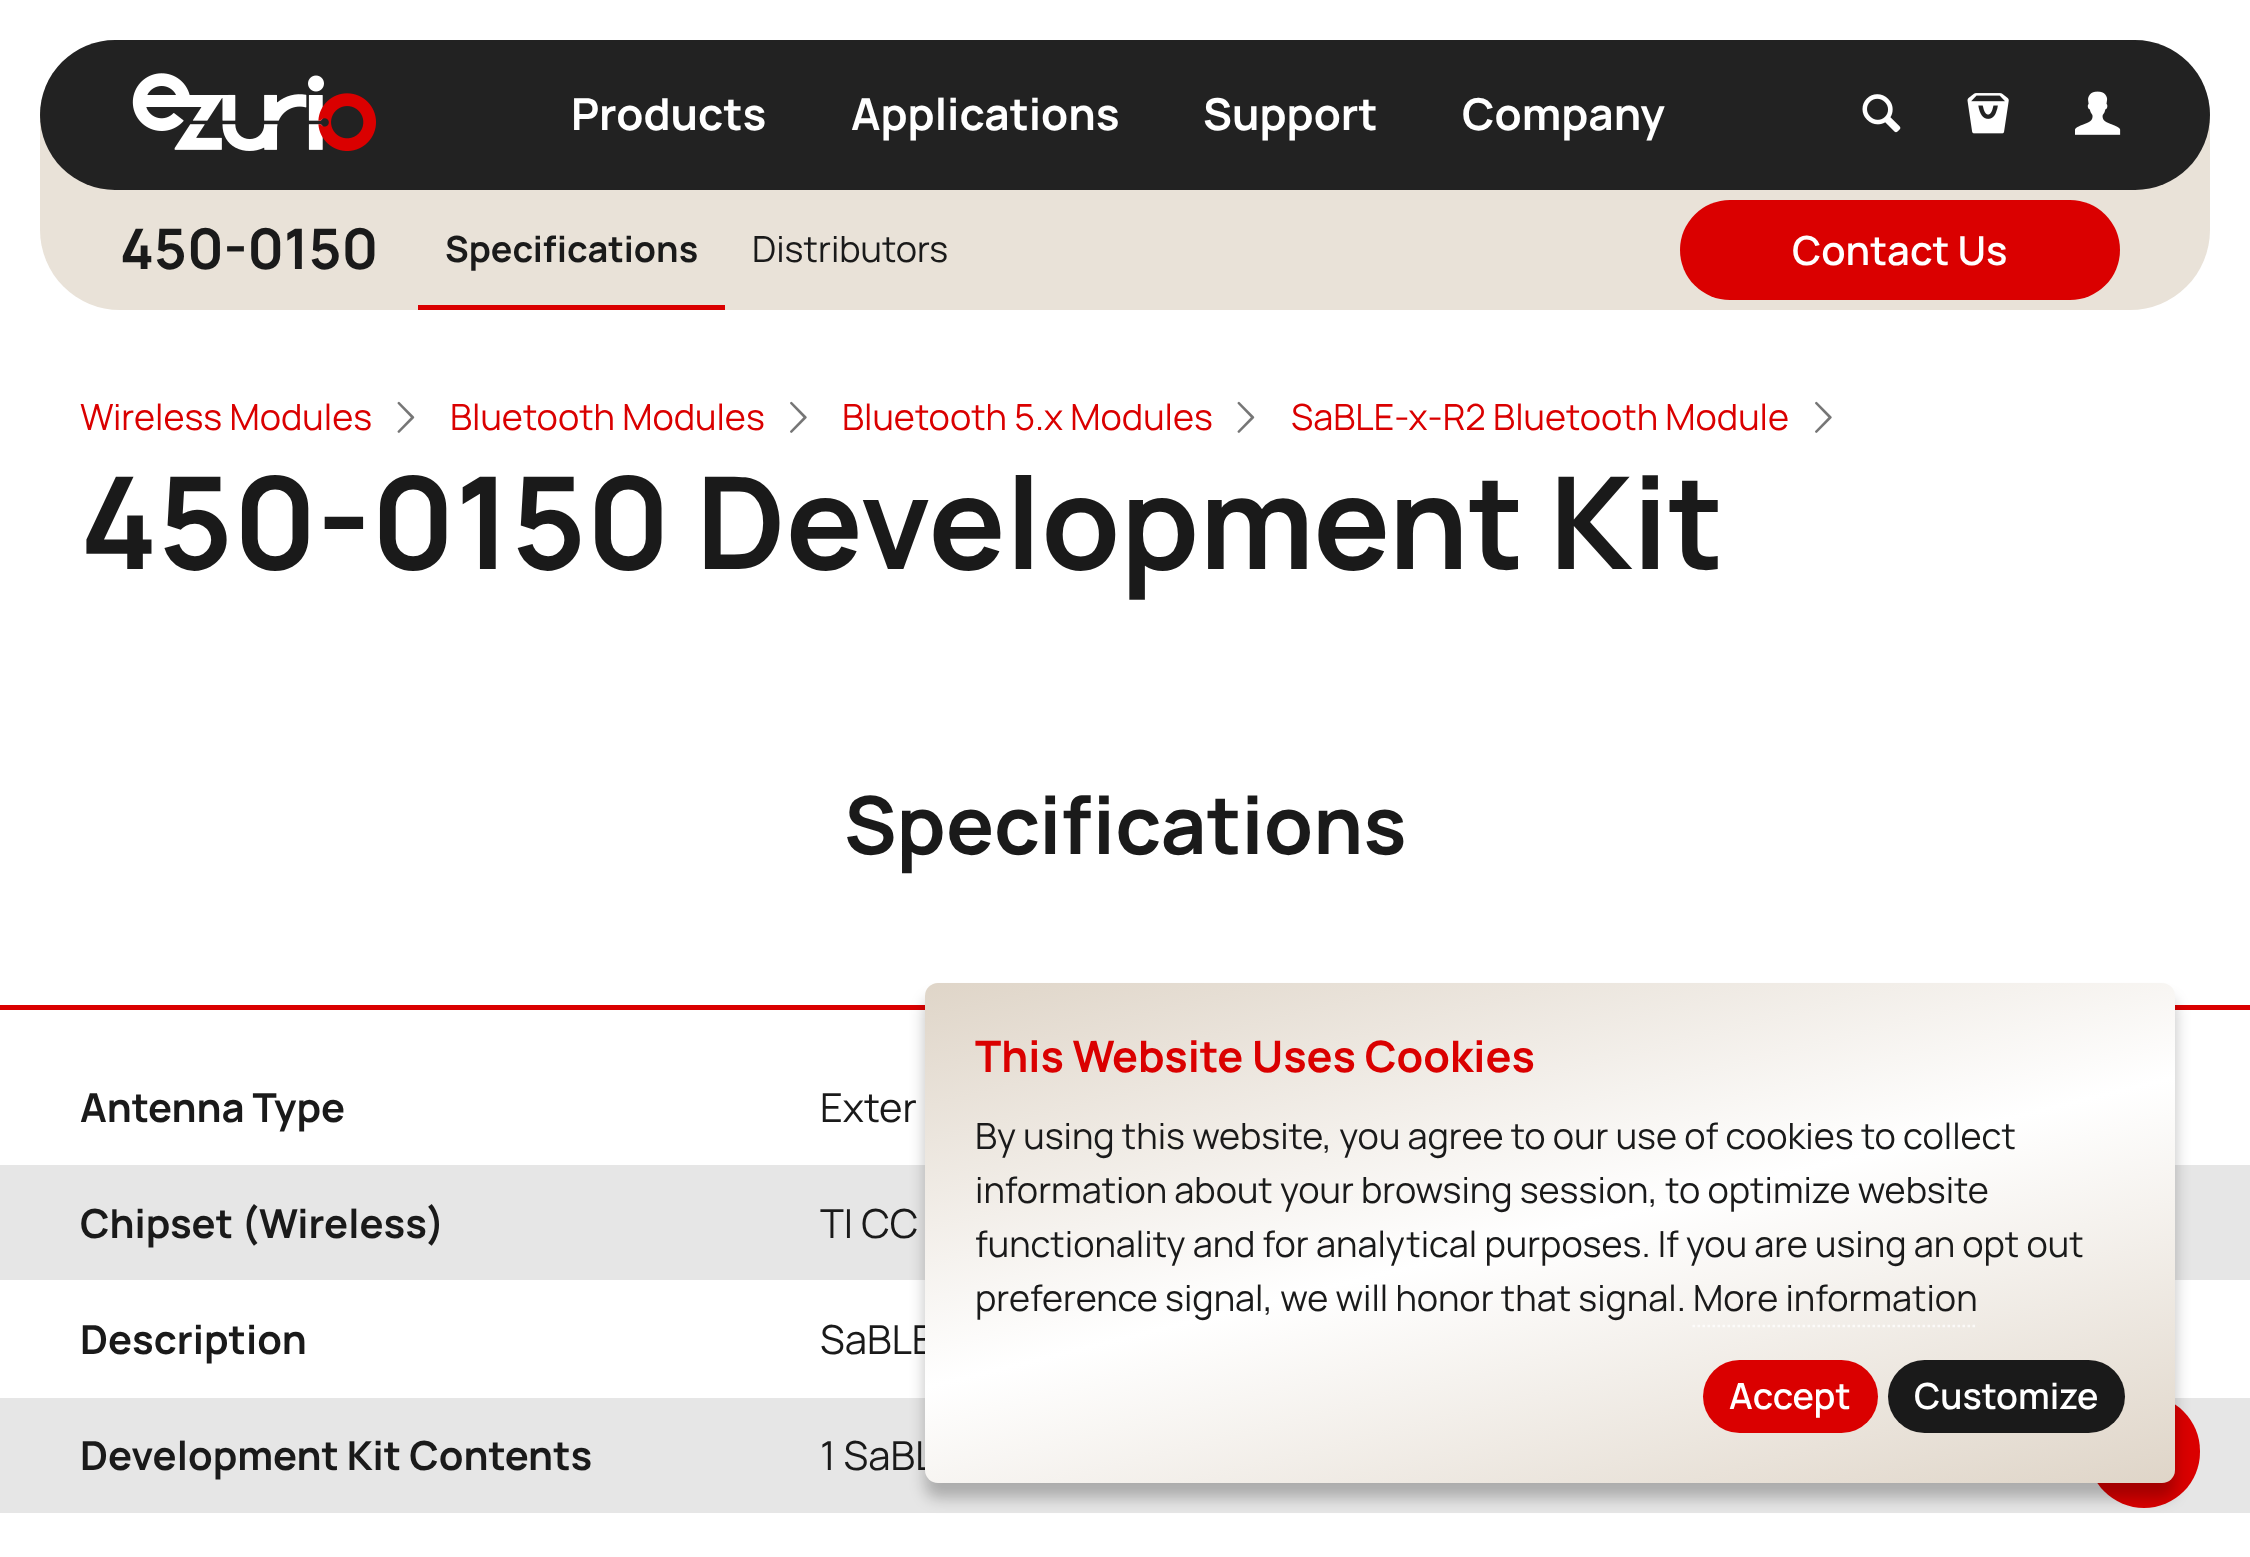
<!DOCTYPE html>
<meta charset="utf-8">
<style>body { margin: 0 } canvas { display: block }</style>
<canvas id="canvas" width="2250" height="1557"></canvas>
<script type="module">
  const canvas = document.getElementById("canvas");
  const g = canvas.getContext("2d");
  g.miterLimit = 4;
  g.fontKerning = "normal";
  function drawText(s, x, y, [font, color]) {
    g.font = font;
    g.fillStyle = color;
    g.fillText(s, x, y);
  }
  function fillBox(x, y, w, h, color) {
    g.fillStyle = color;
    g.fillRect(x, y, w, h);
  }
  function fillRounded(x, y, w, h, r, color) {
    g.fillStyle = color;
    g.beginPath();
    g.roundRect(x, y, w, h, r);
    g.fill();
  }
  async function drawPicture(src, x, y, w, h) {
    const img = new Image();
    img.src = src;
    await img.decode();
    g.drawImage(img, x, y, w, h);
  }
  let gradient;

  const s1 = ["bold 44px Manrope", "#FFFFFF"];
  const s2 = ["bold 56px Manrope", "#1A1A1A"];
  const s3 = ["bold 36px Manrope", "#1A1A1A"];
  const s4 = ["36px Manrope", "#1A1A1A"];
  const s5 = ["600 40px Manrope", "#FFFFFF"];
  const s6 = ["36px Manrope", "#DA0000"];
  const s7 = ["bold 128px Manrope", "#1A1A1A"];
  const s8 = ["bold 80px Manrope", "#1A1A1A"];
  const s9 = ["bold 40px Manrope", "#1A1A1A"];
  const s10 = ["40px Manrope", "#1A1A1A"];
  const s11 = ["bold 43.25px Manrope", "#DA0000"];
  const s12 = ["600 36px Manrope", "#FFFFFF"];

  fillBox(0, 0, 2250, 1557, "#FFFFFF");
  g.fillStyle = "#E9E2D8";
  g.beginPath();
  g.roundRect(40, 110, 2170, 200, [0, 0, 80, 80]);
  g.fill();
  fillRounded(40, 40, 2170, 150, 75, "#222222");
  await drawPicture("pic1.png", 132, 73, 244, 78);
  drawText("Products", 571, 130, s1);
  drawText("Applications", 851, 130, s1);
  drawText("Support", 1203, 130, s1);
  drawText("Company", 1462, 130, s1);
  await drawPicture("pic2.png", 1862, 94, 39, 39);
  await drawPicture("pic3.png", 1967, 93, 42, 41);
  await drawPicture("pic4.png", 2075, 91, 46, 44);
  drawText("450-0150", 120, 269, s2);
  fillBox(418, 305, 307, 5, "#DA0000");
  drawText("Specifications", 445, 262, s3);
  drawText("Distributors", 752, 262, s4);
  fillRounded(1680, 200, 440, 100, 50, "#DA0000");
  drawText("Contact Us", 1792, 265, s5);
  drawText("Wireless Modules", 80, 430, s6);
  await drawPicture("pic5.png", 397, 401, 18, 32);
  drawText("Bluetooth Modules", 450, 430, s6);
  await drawPicture("pic6.png", 790, 401, 17, 32);
  drawText("Bluetooth 5.x Modules", 842, 430, s6);
  await drawPicture("pic5.png", 1237, 401, 18, 32);
  drawText("SaBLE-x-R2 Bluetooth Module", 1291, 430, s6);
  await drawPicture("pic6.png", 1815, 401, 17, 32);
  drawText("450-0150 Development Kit", 80, 569, s7);
  drawText("Specifications", 844, 854, s8);
  fillBox(0, 1005, 2250, 5, "#DA0000");
  drawText("Antenna Type", 80, 1122, s9);
  drawText("Exter", 820, 1122, s10);
  fillBox(0, 1165, 2250, 115, "#E6E6E6");
  drawText("Chipset (Wireless)", 80, 1238, s9);
  drawText("TI CC", 820, 1238, s10);
  drawText("Description", 80, 1354, s9);
  drawText("SaBLE", 820, 1354, s10);
  fillBox(0, 1398, 2250, 115, "#E6E6E6");
  drawText("Development Kit Contents", 80, 1470, s9);
  drawText("1 SaBL", 820, 1470, s10);
  fillRounded(2088, 1395, 112, 113, 56, "#DA0000");
  g.fillStyle = "rgba(0, 0, 0, 0.25)";
  g.filter = "blur(7.5px)";
  g.beginPath();
  g.roundRect(925, 998, 1250, 500, 13);
  g.fill();
  g.filter = "none";
  gradient = g.createLinearGradient(1645, 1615, 1455, 850);
  gradient.addColorStop(0, "#DFD5C8");
  gradient.addColorStop(0.5, "#FFFFFF");
  gradient.addColorStop(1, "#DFD5C8");
  g.fillStyle = gradient;
  g.beginPath();
  g.roundRect(925, 983, 1250, 500, 13);
  g.fill();
  drawText("This Website Uses Cookies", 975, 1072, s11);
  drawText("By using this website, you agree to our use of cookies to collect", 975, 1149, s4);
  drawText("information about your browsing session, to optimize website", 975, 1203, s4);
  drawText("functionality and for analytical purposes. If you are using an opt out", 975, 1257, s4);
  drawText("preference signal, we will honor that signal.", 975, 1311, s4);
  drawText("More information", 1693, 1311, s4);
  g.beginPath();
  g.moveTo(1692.5, 1326);
  g.lineTo(1977.5, 1326);
  g.strokeStyle = "rgba(255, 255, 255, 0.75)";
  g.lineWidth = 2.5;
  g.setLineDash([2.5, 2.5]);
  g.stroke();
  fillRounded(1703, 1360, 175, 73, 36.5, "#DA0000");
  drawText("Accept", 1729, 1409, s12);
  fillRounded(1888, 1360, 237, 73, 36.5, "#1A1A1A");
  drawText("Customize", 1914, 1409, s12);
</script>
